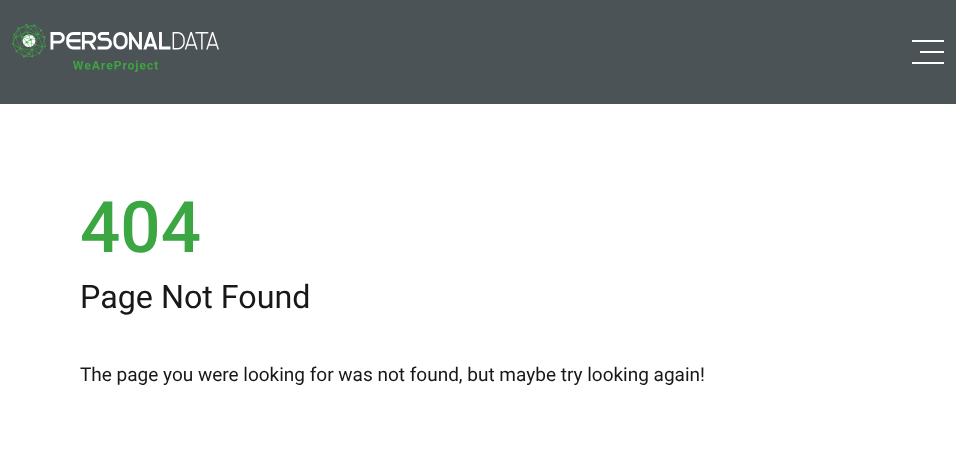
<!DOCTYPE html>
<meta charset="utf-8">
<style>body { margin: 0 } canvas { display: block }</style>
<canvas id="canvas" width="956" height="469"></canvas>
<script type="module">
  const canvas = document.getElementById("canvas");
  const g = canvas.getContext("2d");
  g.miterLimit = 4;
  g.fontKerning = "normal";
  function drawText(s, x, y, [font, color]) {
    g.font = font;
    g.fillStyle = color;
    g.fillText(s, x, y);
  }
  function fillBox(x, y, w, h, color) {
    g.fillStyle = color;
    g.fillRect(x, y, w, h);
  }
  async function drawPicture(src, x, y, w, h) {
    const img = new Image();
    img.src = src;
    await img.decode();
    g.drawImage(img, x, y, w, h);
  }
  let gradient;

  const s1 = ["500 71px Roboto", "#3CA642"];
  const s2 = ["32.25px Roboto", "#181818"];
  const s3 = ["19px Roboto", "#181818"];

  fillBox(0, 0, 956, 469, "#FFFFFF");
  fillBox(0, 0, 956, 104, "#4C5356");
  await drawPicture("pic1.png", 12, 24, 207, 48);
  fillBox(912, 51, 32, 2, "#FFFFFF");
  gradient = g.createLinearGradient(912, 52, 944, 52);
  gradient.addColorStop(0, "#4C5356");
  gradient.addColorStop(0.25, "#4C5356");
  gradient.addColorStop(0.25, "rgba(76, 83, 86, 0)");
  gradient.addColorStop(1, "rgba(255, 255, 255, 0)");
  g.fillStyle = gradient;
  g.fillRect(912, 51, 8, 2);
  fillBox(912, 40, 32, 2, "#FFFFFF");
  fillBox(912, 62, 32, 2, "#FFFFFF");
  drawText("404", 80, 252, s1);
  drawText("Page Not Found", 80, 308, s2);
  drawText("The page you were looking for was not found, but maybe try looking again!", 80, 381, s3);
</script>
